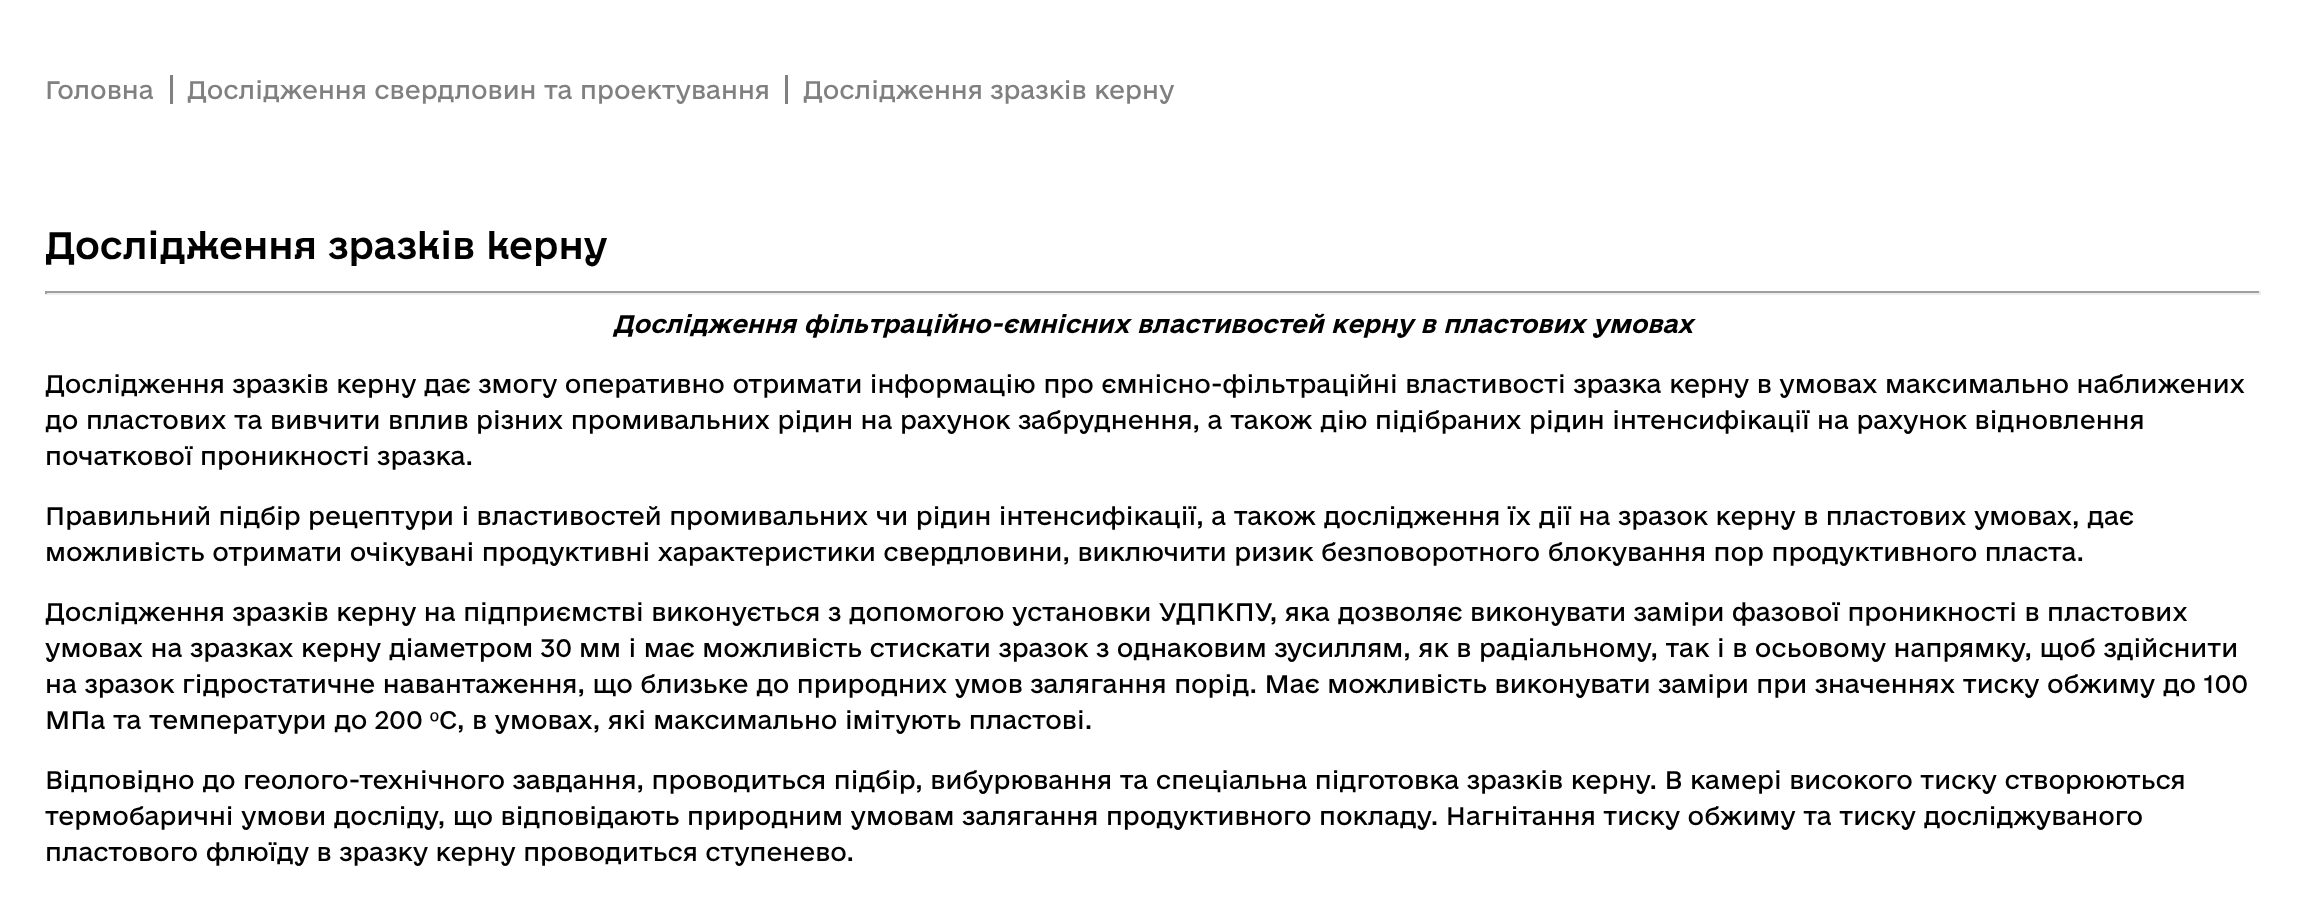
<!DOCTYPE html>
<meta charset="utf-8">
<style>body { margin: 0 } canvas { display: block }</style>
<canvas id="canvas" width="2305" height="903"></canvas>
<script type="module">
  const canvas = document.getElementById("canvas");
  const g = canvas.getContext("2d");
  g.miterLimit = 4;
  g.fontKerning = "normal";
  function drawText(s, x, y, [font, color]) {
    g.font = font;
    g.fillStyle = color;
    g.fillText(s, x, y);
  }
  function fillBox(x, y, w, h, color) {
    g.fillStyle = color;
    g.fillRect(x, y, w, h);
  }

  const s1 = ["24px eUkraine", "#808080"];
  const s2 = ["500 36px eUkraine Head", "#000000"];
  const s3 = ["italic bold 24px eUkraine", "#000000"];
  const s4 = ["24px eUkraine", "#000000"];
  const s5 = ["24px Liberation Sans", "#000000"];

  fillBox(0, 0, 2305, 903, "#FFFFFF");
  drawText("Головна", 45, 99, s1);
  fillBox(170, 75, 3, 29, "#808080");
  drawText("Дослідження свердловин та проектування", 187, 99, s1);
  fillBox(785, 75, 3, 29, "#808080");
  drawText("Дослідження зразків керну", 803, 99, s1);
  drawText("Дослідження зразків керну", 45, 259, s2);
  fillBox(45, 291, 2216, 2, "#9F9F9F");
  fillBox(2259, 291, 2, 3, "#EEEEEE");
  fillBox(45, 293, 2216, 2, "#EEEEEE");
  fillBox(45, 291, 2, 3, "#9F9F9F");
  drawText("Дослідження фільтраційно-ємнісних властивостей керну в пластових умовах", 613, 333, s3);
  drawText("Дослідження зразків керну дає змогу оперативно отримати інформацію про ємнісно-фільтраційні властивості зразка керну в умовах максимально наближених", 45, 393, s4);
  drawText("до пластових та вивчити вплив різних промивальних рідин на рахунок забруднення, а також дію підібраних рідин інтенсифікації на рахунок відновлення", 45, 429, s4);
  drawText("початкової проникності зразка.", 45, 465, s4);
  drawText("Правильний підбір рецептури і властивостей промивальних чи рідин інтенсифікації, а також дослідження їх дії на зразок керну в пластових умовах, дає", 45, 525, s4);
  drawText("можливість отримати очікувані продуктивні характеристики свердловини, виключити ризик безповоротного блокування пор продуктивного пласта.", 45, 561, s4);
  drawText("Дослідження зразків керну на підприємстві виконується з допомогою установки УДПКПУ, яка дозволяє виконувати заміри фазової проникності в пластових", 45, 621, s4);
  drawText("умовах на зразках керну діаметром 30", 45, 657, s4);
  drawText("мм і має можливість стискати зразок з однаковим зусиллям, як в радіальному, так і в осьовому напрямку, щоб здійснити", 579, 657, s4);
  drawText("на зразок гідростатичне навантаження, що близьке до природних умов залягання порід. Має можливість виконувати заміри при значеннях тиску обжиму до 100", 45, 693, s4);
  drawText("МПа та температури до 200", 45, 729, s4);
  drawText("º", 430, 729, s5);
  drawText("С, в умовах, які максимально імітують пластові.", 439, 729, s4);
  drawText("Відповідно до геолого-технічного завдання, проводиться підбір, вибурювання та спеціальна підготовка зразків керну. В камері високого тиску створюються", 45, 789, s4);
  drawText("термобаричні умови досліду, що відповідають природним умовам залягання продуктивного покладу. Нагнітання тиску обжиму та тиску досліджуваного", 45, 825, s4);
  drawText("пластового флюїду в зразку керну проводиться ступенево.", 45, 861, s4);
</script>
